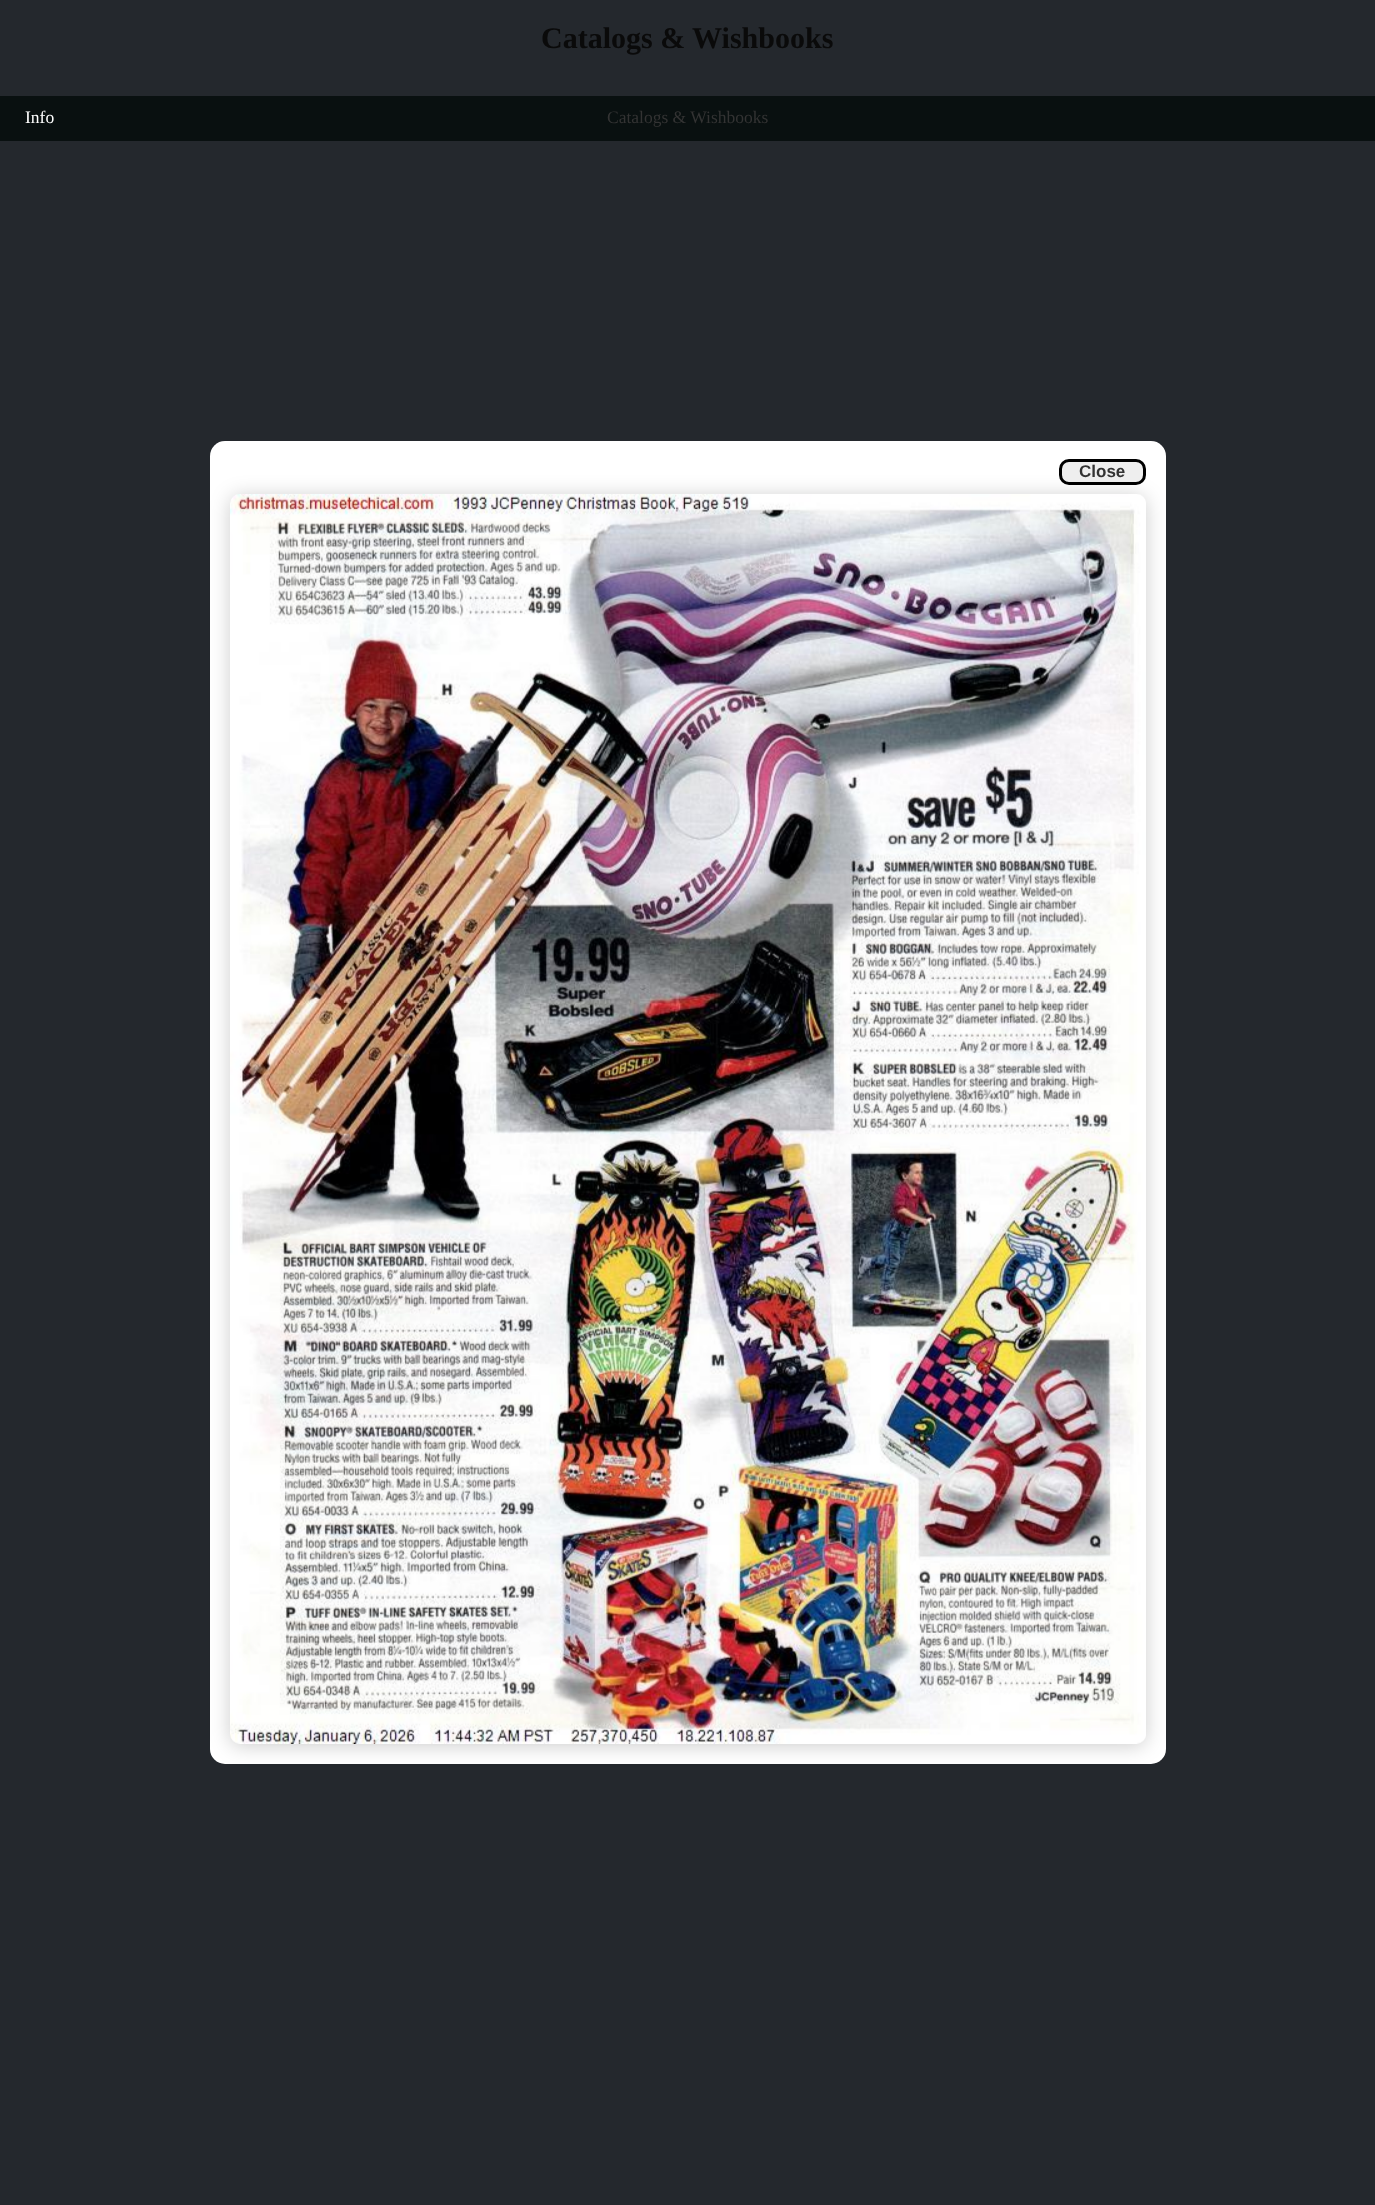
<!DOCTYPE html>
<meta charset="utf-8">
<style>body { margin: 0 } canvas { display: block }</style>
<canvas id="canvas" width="1375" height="2205"></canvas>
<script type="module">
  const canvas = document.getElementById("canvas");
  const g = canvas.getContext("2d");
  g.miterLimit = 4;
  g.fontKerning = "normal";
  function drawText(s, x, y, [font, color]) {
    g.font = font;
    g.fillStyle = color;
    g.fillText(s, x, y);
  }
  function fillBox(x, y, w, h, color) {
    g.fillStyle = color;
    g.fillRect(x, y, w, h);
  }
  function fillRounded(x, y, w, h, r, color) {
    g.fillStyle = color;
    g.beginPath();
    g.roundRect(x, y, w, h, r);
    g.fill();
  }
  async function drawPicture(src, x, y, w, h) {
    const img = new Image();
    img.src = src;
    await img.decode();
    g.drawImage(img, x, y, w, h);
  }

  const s1 = ["17.5px Liberation Serif", "#FFFFFF"];
  const s2 = ["17.5px Liberation Serif", "#333333"];
  const s3 = ["bold 30px Liberation Serif", "#0A0A0A"];
  const s4 = ["bold 17px Liberation Sans", "#333333"];

  fillBox(0, 0, 1375, 2205, "#24282D");
  fillBox(0, 96, 1375, 45, "#091010");
  drawText("Info", 25, 123, s1);
  drawText("Catalogs & Wishbooks", 607, 123, s2);
  drawText("Catalogs & Wishbooks", 541, 48, s3);
  fillRounded(210, 441, 956, 1323, 15, "#FFFFFF");
  g.fillStyle = "rgba(0, 0, 0, 0.2)";
  g.filter = "blur(10px)";
  g.beginPath();
  g.roundRect(230, 496, 916, 1250, 10);
  g.fill();
  g.filter = "none";
  g.fillStyle = "#EEEEEE";
  g.beginPath();
  g.roundRect(1060.5, 460.5, 84, 23, 8.5);
  g.fill();
  g.strokeStyle = "#000000";
  g.lineWidth = 3;
  g.stroke();
  drawText("Close", 1079, 477, s4);
  await drawPicture("pic1.png", 230, 494, 916, 1250);
</script>
